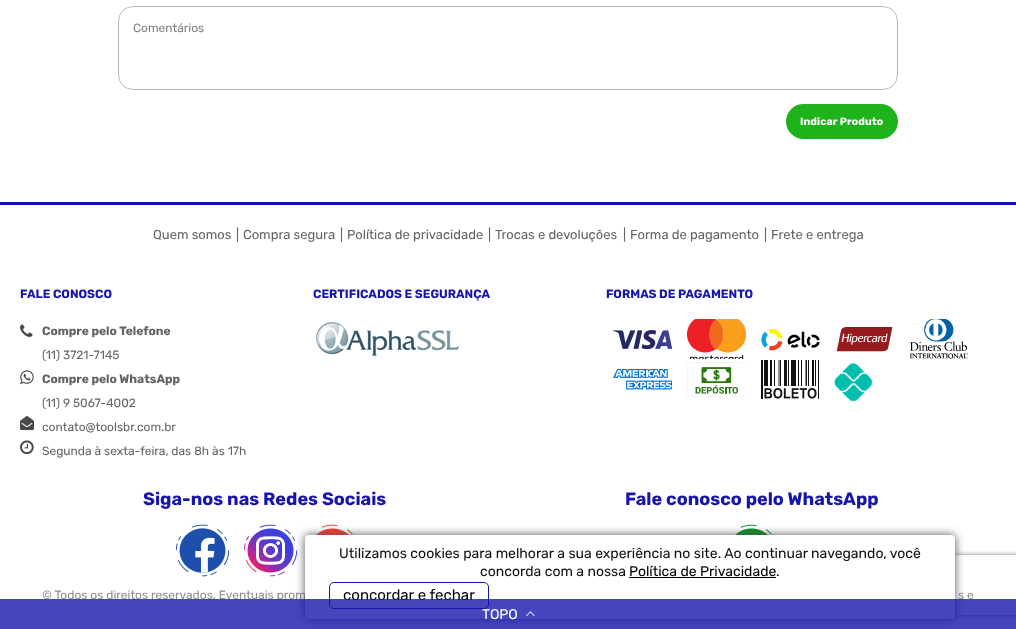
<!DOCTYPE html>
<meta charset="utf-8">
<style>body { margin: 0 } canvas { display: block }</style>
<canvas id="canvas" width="1016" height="629"></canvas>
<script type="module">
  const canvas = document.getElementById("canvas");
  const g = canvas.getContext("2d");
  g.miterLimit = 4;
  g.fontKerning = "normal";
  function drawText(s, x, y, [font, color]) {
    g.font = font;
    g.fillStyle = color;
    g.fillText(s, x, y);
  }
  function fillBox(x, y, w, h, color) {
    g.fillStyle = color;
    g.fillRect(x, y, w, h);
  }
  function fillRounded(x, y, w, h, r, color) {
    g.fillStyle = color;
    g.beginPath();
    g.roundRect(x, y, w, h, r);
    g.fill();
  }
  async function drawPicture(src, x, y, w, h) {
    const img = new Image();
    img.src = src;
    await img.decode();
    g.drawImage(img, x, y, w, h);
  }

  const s1 = ["12px Rubik", "#818181"];
  const s2 = ["bold 10.5px Rubik", "#FFFFFF"];
  const s3 = ["13px Rubik", "#636363"];
  const s4 = ["bold 12px Rubik", "#1616AC"];
  const s5 = ["bold 12px Rubik", "#636363"];
  const s6 = ["12px Rubik", "#636363"];
  const s7 = ["bold 18px Rubik", "#1616AC"];
  const s8 = ["12px Rubik", "#8C8C8C"];
  const s9 = ["14px Rubik", "#100F0F"];
  const s10 = ["14px Rubik", "#000000"];
  const s11 = ["15px Rubik", "#000000"];
  const s12 = ["14px Rubik", "#FFFFFF"];

  fillBox(0, 0, 1016, 629, "#FFFFFF");
  g.beginPath();
  g.roundRect(118.5, 6.5, 779, 83, 14.5);
  g.strokeStyle = "#B7B7B7";
  g.stroke();
  drawText("Comentários", 133, 32, s1);
  fillRounded(786, 104, 112, 35, 17.5, "#1EB31B");
  g.letterSpacing = "0.1px";
  drawText("Indicar Produto", 800, 125, s2);
  g.save();
  g.beginPath();
  g.moveTo(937, 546);
  g.lineTo(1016, 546);
  g.lineTo(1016, 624);
  g.lineTo(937, 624);
  g.closePath();
  g.moveTo(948, 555);
  g.lineTo(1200, 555);
  g.bezierCurveTo(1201, 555, 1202, 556, 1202, 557);
  g.lineTo(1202, 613);
  g.bezierCurveTo(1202, 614, 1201, 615, 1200, 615);
  g.lineTo(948, 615);
  g.bezierCurveTo(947, 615, 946, 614, 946, 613);
  g.lineTo(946, 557);
  g.bezierCurveTo(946, 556, 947, 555, 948, 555);
  g.closePath();
  g.clip("evenodd");
  g.fillStyle = "#808080";
  g.filter = "blur(2.5px)";
  g.beginPath();
  g.roundRect(946, 555, 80, 60, 2);
  g.fill();
  g.filter = "none";
  g.restore();
  fillBox(0, 202, 1016, 3, "#1616AC");
  g.letterSpacing = "0px";
  drawText("Quem somos", 153, 239, s3);
  drawText("|", 236, 239, s3);
  drawText("Compra segura", 243, 239, s3);
  drawText("|", 340, 239, s3);
  drawText("Política de privacidade", 347, 239, s3);
  drawText("|", 488, 239, s3);
  drawText("Trocas e devoluções", 495, 239, s3);
  drawText("|", 623, 239, s3);
  drawText("Forma de pagamento", 630, 239, s3);
  drawText("|", 764, 239, s3);
  drawText("Frete e entrega", 771, 239, s3);
  drawText("FALE CONOSCO", 20, 298, s4);
  await drawPicture("pic1.png", 20, 324, 13, 13);
  drawText("Compre pelo Telefone", 42, 335, s5);
  drawText("(11) 3721-7145", 42, 359, s6);
  await drawPicture("pic2.png", 20, 370, 14, 15);
  drawText("Compre pelo WhatsApp", 42, 383, s5);
  drawText("(11) 9 5067-4002", 42, 407, s6);
  await drawPicture("pic3.png", 20, 416, 14, 14);
  drawText("contato@toolsbr.com.br", 42, 431, s6);
  await drawPicture("pic4.png", 20, 440, 14, 15);
  drawText("Segunda à sexta-feira, das 8h às 17h", 42, 455, s6);
  drawText("CERTIFICADOS E SEGURANÇA", 313, 298, s4);
  await drawPicture("pic5.png", 316, 322, 144, 34);
  drawText("FORMAS DE PAGAMENTO", 606, 298, s4);
  await drawPicture("pic6.png", 613, 330, 59, 19);
  await drawPicture("pic7.png", 687, 319, 59, 40);
  await drawPicture("pic8.png", 761, 329, 59, 22);
  await drawPicture("pic9.png", 836, 327, 57, 25);
  await drawPicture("pic10.png", 909, 319, 59, 40);
  await drawPicture("pic11.png", 613, 369, 59, 21);
  await drawPicture("pic12.png", 687, 362, 59, 35);
  await drawPicture("pic13.png", 761, 360, 58, 39);
  await drawPicture("pic14.png", 834, 362, 39, 40);
  drawText("Siga-nos nas Redes Sociais", 143, 505, s7);
  await drawPicture("pic15.png", 176, 524, 53, 53);
  await drawPicture("pic16.png", 244, 524, 53, 53);
  await drawPicture("pic17.png", 316, 524, 37, 11);
  drawText("Fale conosco pelo WhatsApp", 625, 505, s7);
  await drawPicture("pic18.png", 735, 524, 37, 11);
  drawText("© Todos os direitos reservados. Eventuais prom", 42, 599, s8);
  drawText("s e", 958, 599, s8);
  g.fillStyle = "#505050";
  g.filter = "blur(5px)";
  g.beginPath();
  g.roundRect(305, 535, 650, 84, 4);
  g.fill();
  g.filter = "none";
  fillRounded(305, 535, 650, 84, 4, "#FFFFFF");
  drawText("Utilizamos cookies para melhorar a sua experiência no site. Ao continuar navegando, você", 339, 558, s9);
  drawText("concorda com a nossa", 480, 576, s9);
  drawText("Política de Privacidade", 629, 576, s10);
  fillBox(629, 577, 147, 1, "#000000");
  drawText(".", 776, 576, s9);
  g.beginPath();
  g.roundRect(329.5, 582.5, 159, 26, 4.5);
  g.strokeStyle = "#1616AC";
  g.stroke();
  drawText("concordar e fechar", 343, 600, s11);
  fillBox(0, 599, 1016, 30, "rgba(22, 22, 172, 0.8)");
  drawText("TOPO", 482, 619, s12);
  await drawPicture("pic19.png", 526, 611, 9, 6);
</script>
